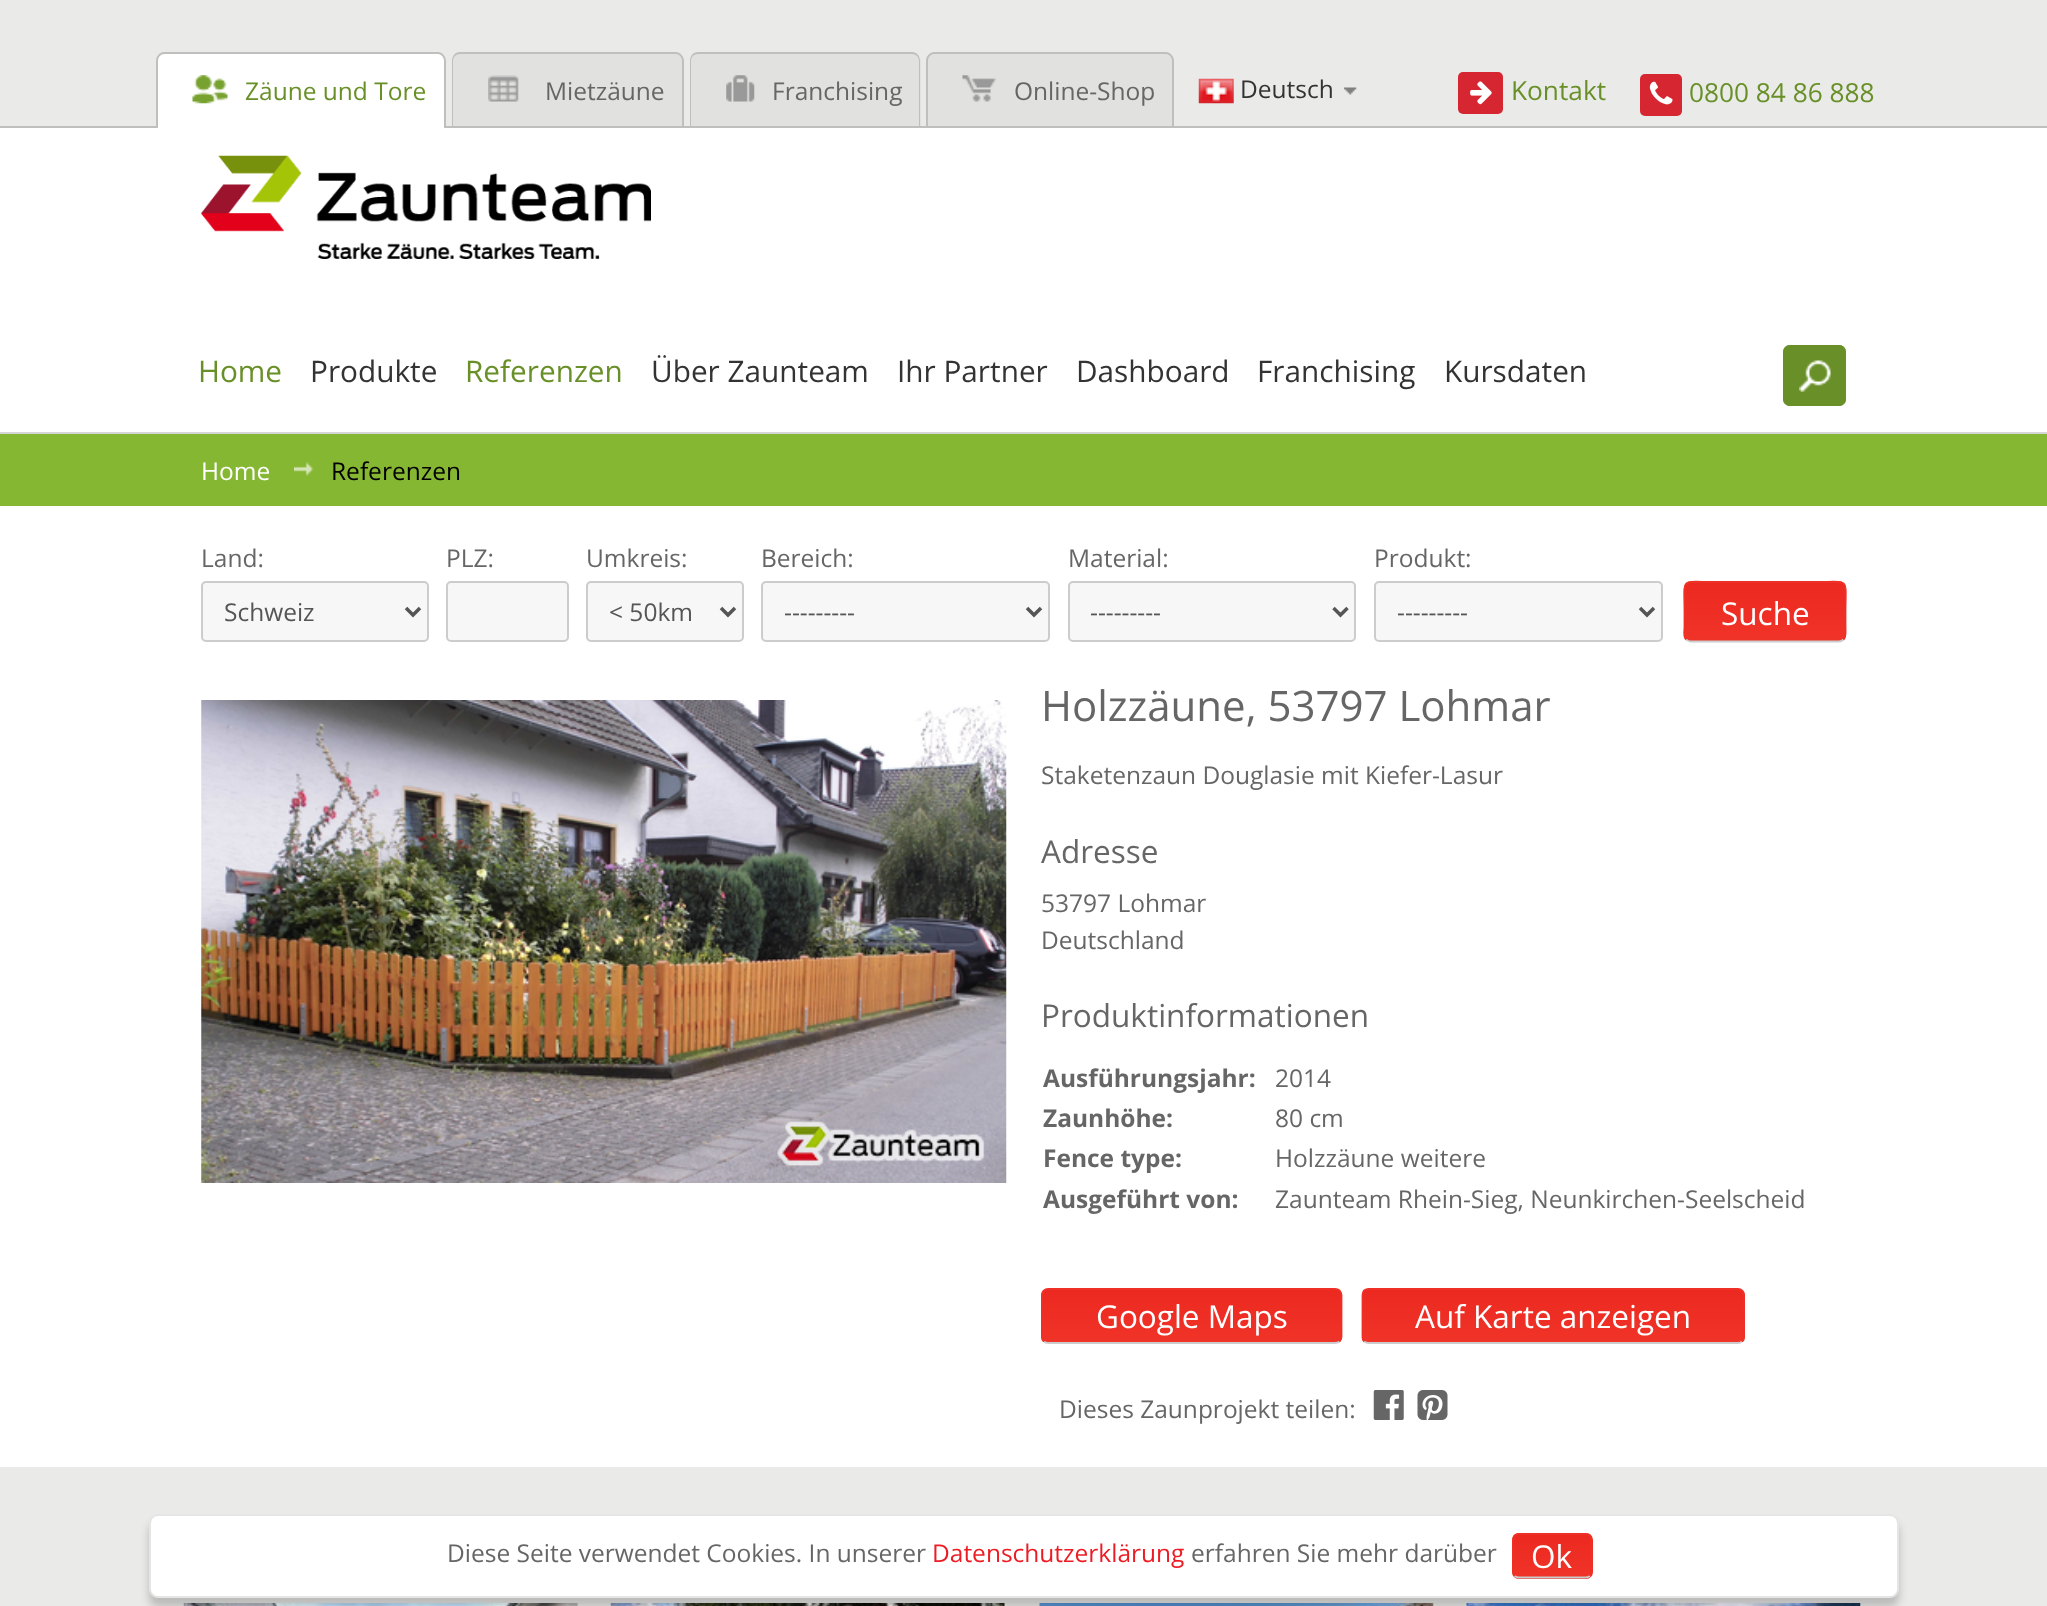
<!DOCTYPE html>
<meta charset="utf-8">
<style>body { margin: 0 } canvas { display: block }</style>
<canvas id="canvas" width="2047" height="1606"></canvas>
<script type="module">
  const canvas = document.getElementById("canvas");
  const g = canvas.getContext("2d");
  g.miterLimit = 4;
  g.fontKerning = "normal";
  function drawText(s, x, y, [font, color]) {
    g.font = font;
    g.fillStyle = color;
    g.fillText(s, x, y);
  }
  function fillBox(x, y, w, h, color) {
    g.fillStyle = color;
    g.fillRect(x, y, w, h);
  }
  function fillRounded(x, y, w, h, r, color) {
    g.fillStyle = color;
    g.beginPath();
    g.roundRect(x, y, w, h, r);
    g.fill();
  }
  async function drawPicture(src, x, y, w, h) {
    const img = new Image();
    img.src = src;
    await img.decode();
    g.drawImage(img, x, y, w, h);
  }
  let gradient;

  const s1 = ["24.5px Open Sans", "#699028"];
  const s2 = ["24.5px Open Sans", "#666666"];
  const s3 = ["24.5px Open Sans", "#333333"];
  const s4 = ["26.25px Open Sans", "#699028"];
  const s5 = ["29.75px Open Sans", "#699028"];
  const s6 = ["29.75px Open Sans", "#333333"];
  const s7 = ["24.5px Open Sans", "#FFFFFF"];
  const s8 = ["24.5px Open Sans", "#000000"];
  const s9 = ["24.5px Open Sans", "#555555"];
  const s10 = ["31.5px Open Sans", "#FFFFFF"];
  const s11 = ["42px Open Sans", "#666666"];
  const s12 = ["31.5px Open Sans", "#666666"];
  const s13 = ["bold 24.5px Open Sans", "#666666"];
  const s14 = ["24.5px Open Sans", "#ED1C24"];

  fillBox(0, 0, 2047, 1606, "#FFFFFF");
  fillBox(0, 0, 2047, 126, "#EAEBE9");
  fillBox(0, 126, 2047, 2, "#BFBFBE");
  g.fillStyle = "#FFFFFF";
  g.beginPath();
  g.roundRect(156, 53, 290, 75, [9, 9, 0, 0]);
  g.fill();
  g.fillStyle = "#BFBFBE";
  g.beginPath();
  g.moveTo(164, 52);
  g.lineTo(438, 52);
  g.bezierCurveTo(442, 52, 446, 56, 446, 61);
  g.lineTo(446, 128);
  g.lineTo(156, 128);
  g.lineTo(156, 61);
  g.bezierCurveTo(156, 56, 160, 52, 164, 52);
  g.closePath();
  g.moveTo(164, 54);
  g.lineTo(438, 54);
  g.bezierCurveTo(441, 54, 444, 57, 444, 61);
  g.lineTo(444, 128);
  g.lineTo(158, 128);
  g.lineTo(158, 61);
  g.bezierCurveTo(158, 57, 161, 54, 164, 54);
  g.closePath();
  g.fill("evenodd");
  await drawPicture("pic1.png", 192, 75, 36, 29);
  drawText("Zäune und Tore", 245, 100, s1);
  g.fillStyle = "#E1E1DF";
  g.beginPath();
  g.roundRect(452, 53, 232, 73, [9, 9, 0, 0]);
  g.fill();
  g.fillStyle = "#BFBFBE";
  g.beginPath();
  g.moveTo(460, 52);
  g.lineTo(676, 52);
  g.bezierCurveTo(680, 52, 684, 56, 684, 61);
  g.lineTo(684, 126);
  g.lineTo(452, 126);
  g.lineTo(452, 61);
  g.bezierCurveTo(452, 56, 455, 52, 460, 52);
  g.closePath();
  g.moveTo(460, 54);
  g.lineTo(676, 54);
  g.bezierCurveTo(679, 54, 682, 57, 682, 61);
  g.lineTo(682, 126);
  g.lineTo(453, 126);
  g.lineTo(453, 61);
  g.bezierCurveTo(453, 57, 456, 54, 460, 54);
  g.closePath();
  g.fill("evenodd");
  await drawPicture("pic2.png", 488, 75, 31, 27);
  drawText("Mietzäune", 545, 100, s2);
  g.fillStyle = "#E1E1DF";
  g.beginPath();
  g.roundRect(690, 53, 231, 73, [9, 9, 0, 0]);
  g.fill();
  g.fillStyle = "#BFBFBE";
  g.beginPath();
  g.moveTo(698, 52);
  g.lineTo(912, 52);
  g.bezierCurveTo(917, 52, 920, 56, 920, 61);
  g.lineTo(920, 126);
  g.lineTo(690, 126);
  g.lineTo(690, 61);
  g.bezierCurveTo(690, 56, 693, 52, 698, 52);
  g.closePath();
  g.moveTo(698, 54);
  g.lineTo(912, 54);
  g.bezierCurveTo(916, 54, 919, 57, 919, 61);
  g.lineTo(919, 126);
  g.lineTo(691, 126);
  g.lineTo(691, 61);
  g.bezierCurveTo(691, 57, 694, 54, 698, 54);
  g.closePath();
  g.fill("evenodd");
  await drawPicture("pic3.png", 726, 75, 29, 27);
  drawText("Franchising", 772, 100, s2);
  g.fillStyle = "#E1E1DF";
  g.beginPath();
  g.roundRect(926, 53, 248, 73, [9, 9, 0, 0]);
  g.fill();
  g.fillStyle = "#BFBFBE";
  g.beginPath();
  g.moveTo(934, 52);
  g.lineTo(1166, 52);
  g.bezierCurveTo(1170, 52, 1174, 56, 1174, 61);
  g.lineTo(1174, 126);
  g.lineTo(926, 126);
  g.lineTo(926, 61);
  g.bezierCurveTo(926, 56, 930, 52, 934, 52);
  g.closePath();
  g.moveTo(934, 54);
  g.lineTo(1166, 54);
  g.bezierCurveTo(1169, 54, 1172, 57, 1172, 61);
  g.lineTo(1172, 126);
  g.lineTo(928, 126);
  g.lineTo(928, 61);
  g.bezierCurveTo(928, 57, 931, 54, 934, 54);
  g.closePath();
  g.fill("evenodd");
  await drawPicture("pic4.png", 962, 75, 34, 27);
  drawText("Online-Shop", 1014, 100, s2);
  await drawPicture("pic5.png", 1198, 78, 36, 26);
  drawText("Deutsch", 1240, 98, s3);
  await drawPicture("pic6.png", 1344, 87, 13, 8);
  fillRounded(1458, 72, 45, 42, 5, "#D62631");
  await drawPicture("pic7.png", 1470, 81, 22, 24);
  drawText("Kontakt", 1511, 100, s4);
  fillRounded(1640, 74, 42, 42, 5, "#D62631");
  await drawPicture("pic8.png", 1649, 81, 24, 24);
  drawText("0800 84 86 888", 1689, 102, s4);
  await drawPicture("pic9.png", 201, 155, 450, 104);
  drawText("Home", 198, 382, s5);
  drawText("Produkte", 310, 382, s6);
  drawText("Referenzen", 465, 382, s5);
  drawText("Über Zaunteam", 651, 382, s6);
  drawText("Ihr Partner", 897, 382, s6);
  drawText("Dashboard", 1076, 382, s6);
  drawText("Franchising", 1257, 382, s6);
  drawText("Kursdaten", 1444, 382, s6);
  fillRounded(1783, 345, 63, 61, 7, "#699028");
  await drawPicture("pic10.png", 1799, 360, 32, 32);
  g.beginPath();
  g.roundRect(1784, 346, 61, 59, 6);
  g.strokeStyle = "#699028";
  g.lineWidth = 2;
  g.stroke();
  fillBox(0, 434, 2047, 72, "#86B732");
  fillBox(0, 432, 2047, 2, "#D6D6D6");
  drawText("Home", 201, 480, s7);
  await drawPicture("pic11.png", 294, 462, 20, 14);
  drawText("Referenzen", 331, 480, s8);
  drawText("Land:", 201, 567, s2);
  g.fillStyle = "#F7F7F7";
  g.beginPath();
  g.roundRect(202, 582, 226, 59, 4);
  g.fill();
  g.strokeStyle = "#CCCCCC";
  g.stroke();
  g.beginPath();
  g.moveTo(406, 608);
  g.lineTo(413, 615);
  g.lineTo(420, 608);
  g.strokeStyle = "#555555";
  g.lineWidth = 3.5;
  g.stroke();
  drawText("Schweiz", 224, 621, s9);
  drawText("PLZ:", 446, 567, s2);
  g.fillStyle = "#F7F7F7";
  g.beginPath();
  g.roundRect(447, 582, 121, 59, 4);
  g.fill();
  g.strokeStyle = "#CCCCCC";
  g.lineWidth = 2;
  g.stroke();
  drawText("Umkreis:", 586, 567, s2);
  g.fillStyle = "#F7F7F7";
  g.beginPath();
  g.roundRect(587, 582, 156, 59, 4);
  g.fill();
  g.stroke();
  g.beginPath();
  g.moveTo(721, 608);
  g.lineTo(728, 615);
  g.lineTo(735, 608);
  g.strokeStyle = "#555555";
  g.lineWidth = 3.5;
  g.stroke();
  drawText("< 50km", 609, 621, s9);
  drawText("Bereich:", 761, 567, s2);
  g.fillStyle = "#F7F7F7";
  g.beginPath();
  g.roundRect(762, 582, 287, 59, 4);
  g.fill();
  g.strokeStyle = "#CCCCCC";
  g.lineWidth = 2;
  g.stroke();
  g.beginPath();
  g.moveTo(1027, 608);
  g.lineTo(1034, 615);
  g.lineTo(1041, 608);
  g.strokeStyle = "#555555";
  g.lineWidth = 3.5;
  g.stroke();
  drawText("---------", 784, 621, s9);
  drawText("Material:", 1068, 567, s2);
  g.fillStyle = "#F7F7F7";
  g.beginPath();
  g.roundRect(1069, 582, 286, 59, 4);
  g.fill();
  g.strokeStyle = "#CCCCCC";
  g.lineWidth = 2;
  g.stroke();
  g.beginPath();
  g.moveTo(1333.5, 608);
  g.lineTo(1340.5, 615);
  g.lineTo(1347.5, 608);
  g.strokeStyle = "#555555";
  g.lineWidth = 3.5;
  g.stroke();
  drawText("---------", 1090, 621, s9);
  drawText("Produkt:", 1374, 567, s2);
  g.fillStyle = "#F7F7F7";
  g.beginPath();
  g.roundRect(1375, 582, 287, 59, 4);
  g.fill();
  g.strokeStyle = "#CCCCCC";
  g.lineWidth = 2;
  g.stroke();
  g.beginPath();
  g.moveTo(1640, 608);
  g.lineTo(1647, 615);
  g.lineTo(1654, 608);
  g.strokeStyle = "#555555";
  g.lineWidth = 3.5;
  g.stroke();
  drawText("---------", 1397, 621, s9);
  g.save();
  g.beginPath();
  g.roundRect(1684, 581, 162, 61, 7);
  g.clip();
  gradient = g.createLinearGradient(1765, 525, 1765, 583);
  gradient.addColorStop(0, "#EC2920");
  gradient.addColorStop(1, "#F03328");
  g.fillStyle = gradient;
  g.fillRect(1684, 581, 162, 2);
  gradient = g.createLinearGradient(1765, 583, 1765, 641);
  gradient.addColorStop(0, "#EC2920");
  gradient.addColorStop(1, "#F03328");
  g.fillStyle = gradient;
  g.fillRect(1684, 583, 162, 58);
  g.restore();
  g.beginPath();
  g.moveTo(1843.5, 639.5);
  g.bezierCurveTo(1842.5, 640.5, 1841, 641.5, 1839, 641.5);
  g.lineTo(1690.5, 641.5);
  g.bezierCurveTo(1689, 641.5, 1687.5, 640.5, 1686, 639.5);
  g.strokeStyle = "#CCCCCC";
  g.lineWidth = 1.8;
  g.stroke();
  g.beginPath();
  g.moveTo(1686, 639.5);
  g.bezierCurveTo(1683, 636.5, 1684.5, 630.5, 1684.5, 627.5);
  g.lineTo(1684.5, 611.5);
  g.bezierCurveTo(1684.5, 576.5, 1679, 582, 1715.5, 582);
  g.lineTo(1814.5, 582);
  g.bezierCurveTo(1851, 582, 1845.5, 576.5, 1845.5, 611.5);
  g.lineTo(1845.5, 627.5);
  g.bezierCurveTo(1845.5, 630.5, 1846.5, 636.5, 1843.5, 639.5);
  g.strokeStyle = "#EF3026";
  g.stroke();
  drawText("Suche", 1721, 625, s10);
  await drawPicture("pic12.png", 201, 700, 806, 483);
  drawText("Holzzäune, 53797 Lohmar", 1041, 721, s11);
  drawText("Staketenzaun Douglasie mit Kiefer-Lasur", 1041, 784, s2);
  drawText("Adresse", 1041, 863, s12);
  drawText("53797 Lohmar", 1041, 912, s2);
  drawText("Deutschland", 1041, 949, s2);
  drawText("Produktinformationen", 1041, 1027, s12);
  drawText("Ausführungsjahr:", 1043, 1087, s13);
  drawText("2014", 1275, 1087, s2);
  drawText("Zaunhöhe:", 1043, 1127, s13);
  drawText("80 cm", 1275, 1127, s2);
  drawText("Fence type:", 1043, 1167, s13);
  drawText("Holzzäune weitere", 1275, 1167, s2);
  drawText("Ausgeführt von:", 1043, 1208, s13);
  drawText("Zaunteam Rhein-Sieg, Neunkirchen-Seelscheid", 1275, 1208, s2);
  g.save();
  g.beginPath();
  g.roundRect(1041, 1288, 301, 56, 7);
  g.clip();
  gradient = g.createLinearGradient(1192, 1290, 1192, 1342);
  gradient.addColorStop(0, "#EC2920");
  gradient.addColorStop(1, "#F03328");
  g.fillStyle = gradient;
  g.fillRect(1041, 1290, 301, 52);
  g.restore();
  g.beginPath();
  g.moveTo(1339.5, 1341.5);
  g.bezierCurveTo(1338.5, 1342.5, 1337, 1343, 1335, 1343);
  g.lineTo(1048, 1343);
  g.bezierCurveTo(1046.5, 1343, 1045, 1342.5, 1044, 1341.5);
  g.strokeStyle = "#CCCCCC";
  g.stroke();
  g.beginPath();
  g.moveTo(1044, 1341.5);
  g.bezierCurveTo(1043, 1340, 1042, 1338.5, 1042, 1337);
  g.lineTo(1042, 1295);
  g.bezierCurveTo(1042, 1293.5, 1043, 1292, 1044, 1290.5);
  g.bezierCurveTo(1045, 1289.5, 1046.5, 1289, 1048, 1289);
  g.lineTo(1335, 1289);
  g.bezierCurveTo(1337, 1289, 1338.5, 1289.5, 1339.5, 1290.5);
  g.bezierCurveTo(1340.5, 1292, 1341.5, 1293.5, 1341.5, 1295);
  g.lineTo(1341.5, 1337);
  g.bezierCurveTo(1341.5, 1338.5, 1340.5, 1340, 1339.5, 1341.5);
  g.strokeStyle = "#EF3026";
  g.stroke();
  drawText("Google Maps", 1096, 1328, s10);
  g.save();
  g.beginPath();
  g.roundRect(1362, 1288, 383, 56, 7);
  g.clip();
  gradient = g.createLinearGradient(1553, 1290, 1553, 1342);
  gradient.addColorStop(0, "#EC2920");
  gradient.addColorStop(1, "#F03328");
  g.fillStyle = gradient;
  g.fillRect(1362, 1290, 383, 52);
  g.restore();
  g.beginPath();
  g.moveTo(1742, 1341.5);
  g.bezierCurveTo(1741, 1342.5, 1739.5, 1343, 1738, 1343);
  g.lineTo(1368.5, 1343);
  g.bezierCurveTo(1367, 1343, 1365.5, 1342.5, 1364, 1341.5);
  g.strokeStyle = "#CCCCCC";
  g.stroke();
  g.beginPath();
  g.moveTo(1364, 1341.5);
  g.bezierCurveTo(1363, 1340, 1362.5, 1338.5, 1362.5, 1337);
  g.lineTo(1362.5, 1295);
  g.bezierCurveTo(1362.5, 1293.5, 1363, 1292, 1364, 1290.5);
  g.bezierCurveTo(1365.5, 1289.5, 1367, 1289, 1368.5, 1289);
  g.lineTo(1738, 1289);
  g.bezierCurveTo(1739.5, 1289, 1741, 1289.5, 1742, 1290.5);
  g.bezierCurveTo(1743, 1292, 1744, 1293.5, 1744, 1295);
  g.lineTo(1744, 1337);
  g.bezierCurveTo(1744, 1338.5, 1743, 1340, 1742, 1341.5);
  g.strokeStyle = "#EF3026";
  g.stroke();
  drawText("Auf Karte anzeigen", 1415, 1328, s10);
  drawText("Dieses Zaunprojekt teilen:", 1059, 1418, s2);
  await drawPicture("pic13.png", 1373, 1390, 31, 30);
  await drawPicture("pic14.png", 1417, 1390, 31, 30);
  fillBox(0, 1467, 2047, 139, "#EAEBE9");
  await drawPicture("pic15.png", 183, 1603, 395, 3);
  await drawPicture("pic16.png", 610, 1603, 395, 3);
  await drawPicture("pic17.png", 1039, 1603, 395, 3);
  await drawPicture("pic18.png", 1466, 1603, 395, 3);
  g.fillStyle = "rgba(0, 0, 0, 0.2)";
  g.filter = "blur(4.5px)";
  g.beginPath();
  g.roundRect(149, 1523, 1750, 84, 9);
  g.fill();
  g.filter = "none";
  g.fillStyle = "#FFFFFF";
  g.beginPath();
  g.roundRect(150, 1515, 1748, 82, 8);
  g.fill();
  g.strokeStyle = "#E5E5E5";
  g.lineWidth = 2;
  g.stroke();
  drawText("Diese Seite verwendet Cookies. In unserer", 447, 1562, s2);
  drawText("Datenschutzerklärung", 932, 1562, s14);
  drawText("erfahren Sie mehr darüber", 1191, 1562, s2);
  g.save();
  g.beginPath();
  g.roundRect(1512, 1533, 81, 46, 7);
  g.clip();
  gradient = g.createLinearGradient(1552, 1493, 1552, 1535);
  gradient.addColorStop(0, "#EC2920");
  gradient.addColorStop(1, "#F03328");
  g.fillStyle = gradient;
  g.fillRect(1512, 1533, 81, 2);
  gradient = g.createLinearGradient(1552, 1535, 1552, 1577);
  gradient.addColorStop(0, "#EC2920");
  gradient.addColorStop(1, "#F03328");
  g.fillStyle = gradient;
  g.fillRect(1512, 1535, 81, 42);
  gradient = g.createLinearGradient(1552, 1577, 1552, 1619);
  gradient.addColorStop(0, "#EC2920");
  gradient.addColorStop(1, "#F03328");
  g.fillStyle = gradient;
  g.fillRect(1512, 1577, 81, 2);
  g.restore();
  g.beginPath();
  g.moveTo(1590, 1576);
  g.bezierCurveTo(1588.5, 1577, 1587, 1577.5, 1585.5, 1577.5);
  g.lineTo(1519, 1577.5);
  g.bezierCurveTo(1517.5, 1577.5, 1516, 1577, 1514.5, 1576);
  g.strokeStyle = "#CCCCCC";
  g.lineWidth = 1.8;
  g.stroke();
  g.beginPath();
  g.moveTo(1514.5, 1576);
  g.bezierCurveTo(1513.5, 1574.5, 1513, 1573, 1513, 1571.5);
  g.lineTo(1513, 1540);
  g.bezierCurveTo(1513, 1538.5, 1513.5, 1537, 1514.5, 1535.5);
  g.bezierCurveTo(1516, 1534.5, 1517.5, 1534, 1519, 1534);
  g.lineTo(1585.5, 1534);
  g.bezierCurveTo(1587, 1534, 1588.5, 1534.5, 1590, 1535.5);
  g.bezierCurveTo(1591, 1537, 1591.5, 1538.5, 1591.5, 1540);
  g.lineTo(1591.5, 1571.5);
  g.bezierCurveTo(1591.5, 1573, 1591, 1574.5, 1590, 1576);
  g.strokeStyle = "#EF3026";
  g.stroke();
  drawText("Ok", 1531, 1568, s10);
</script>
